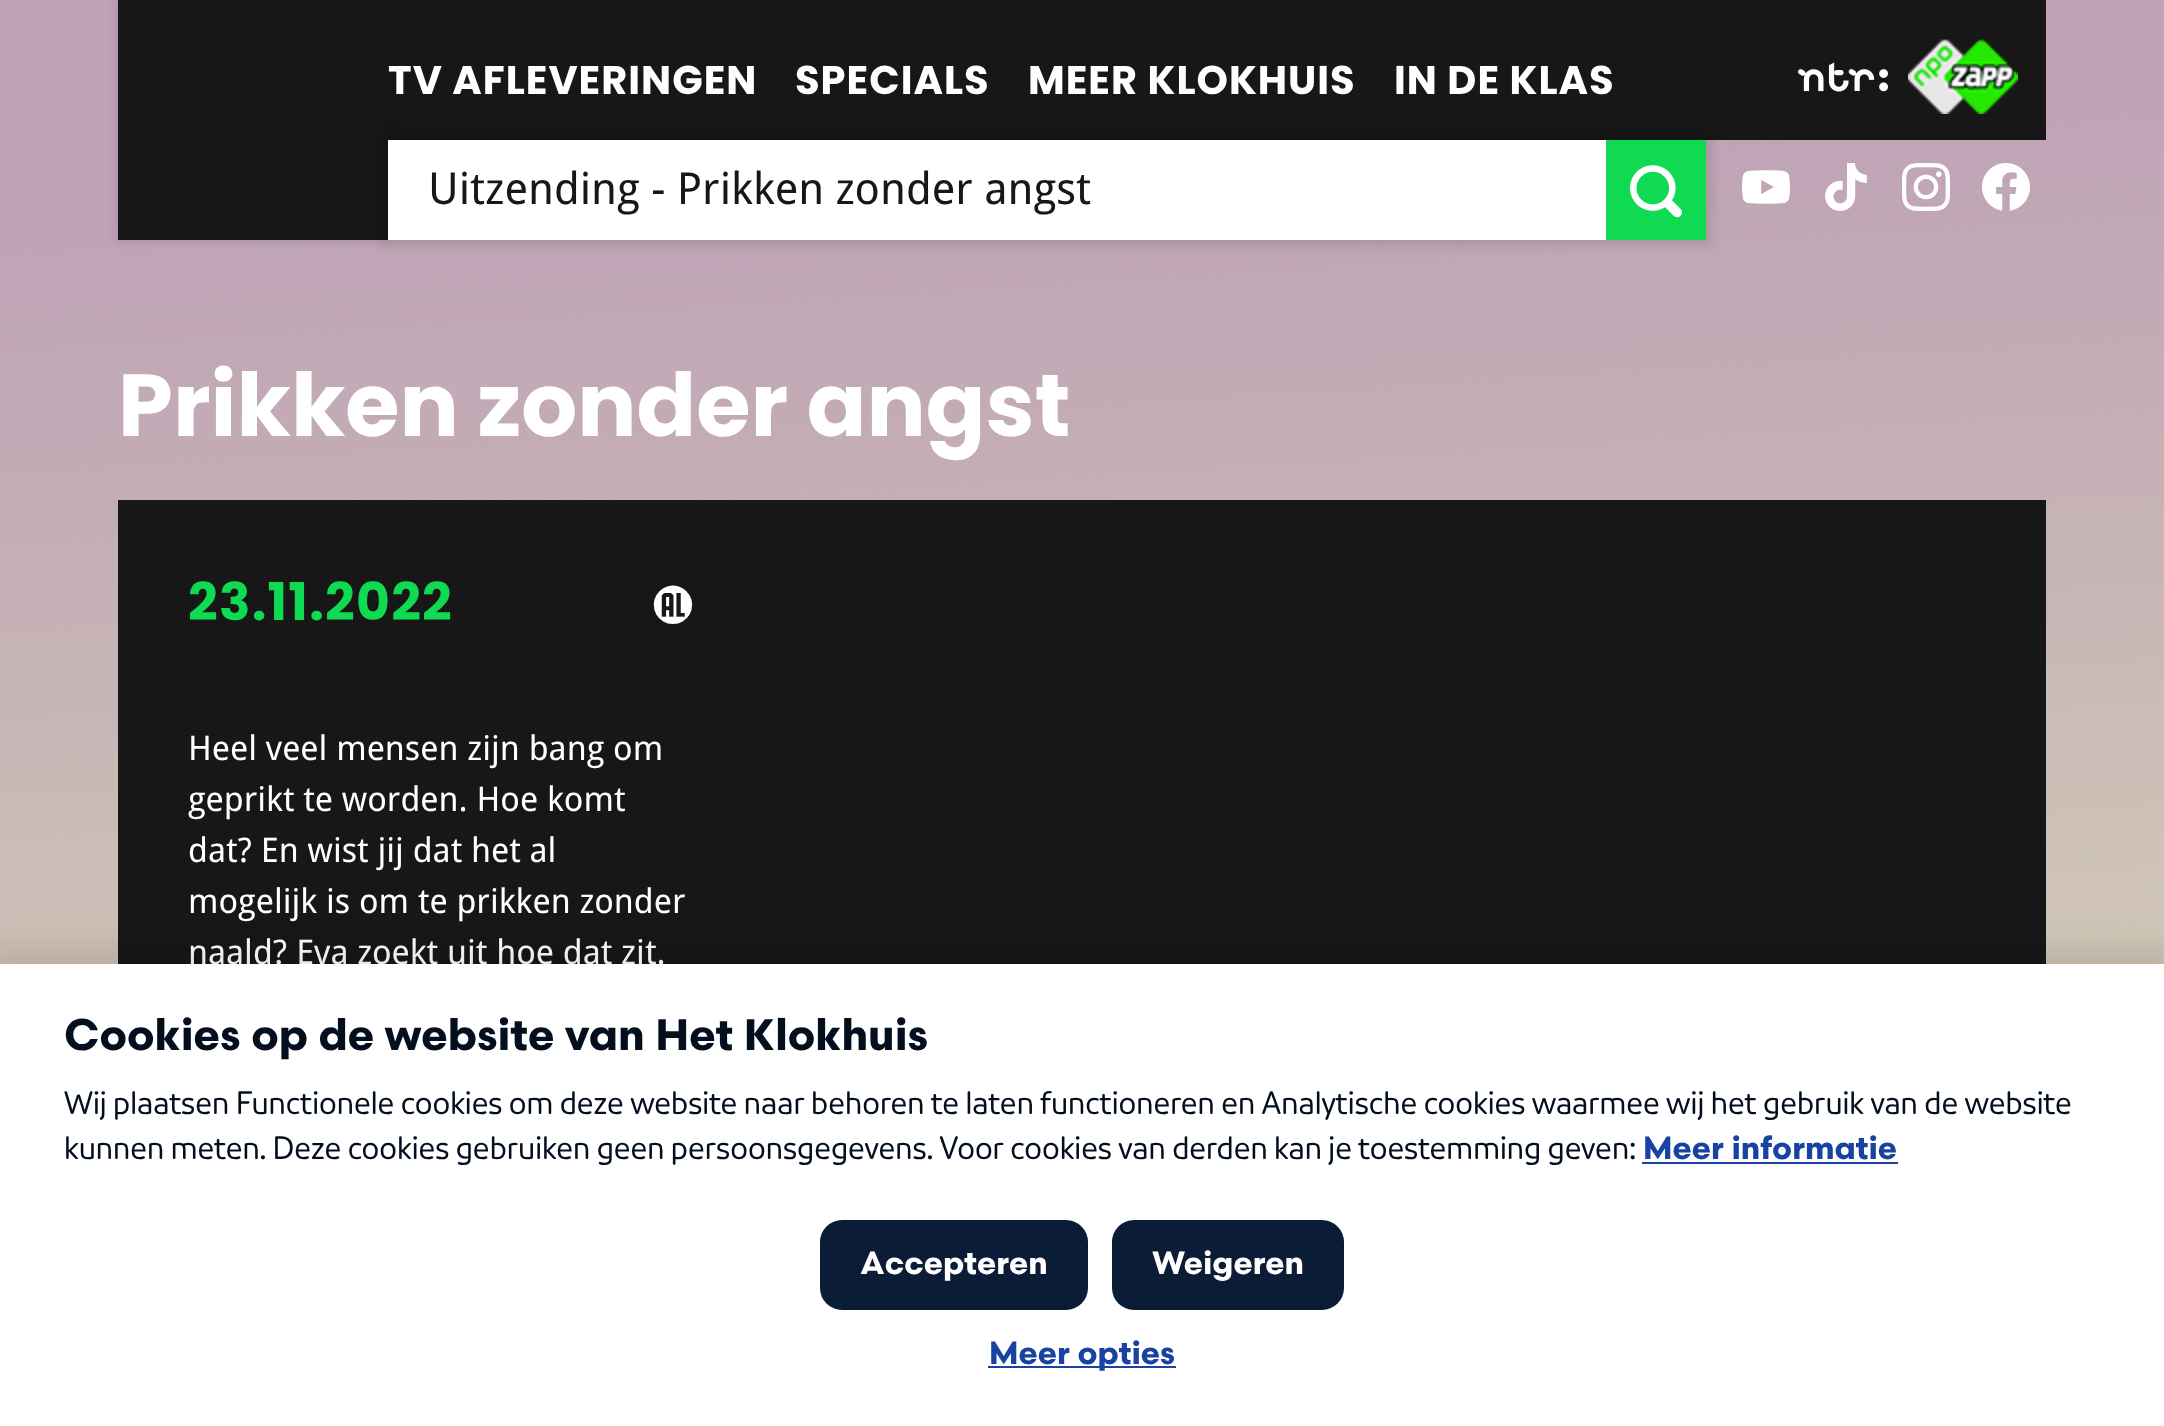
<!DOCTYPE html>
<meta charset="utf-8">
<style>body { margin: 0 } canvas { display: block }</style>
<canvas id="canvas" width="2164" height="1426"></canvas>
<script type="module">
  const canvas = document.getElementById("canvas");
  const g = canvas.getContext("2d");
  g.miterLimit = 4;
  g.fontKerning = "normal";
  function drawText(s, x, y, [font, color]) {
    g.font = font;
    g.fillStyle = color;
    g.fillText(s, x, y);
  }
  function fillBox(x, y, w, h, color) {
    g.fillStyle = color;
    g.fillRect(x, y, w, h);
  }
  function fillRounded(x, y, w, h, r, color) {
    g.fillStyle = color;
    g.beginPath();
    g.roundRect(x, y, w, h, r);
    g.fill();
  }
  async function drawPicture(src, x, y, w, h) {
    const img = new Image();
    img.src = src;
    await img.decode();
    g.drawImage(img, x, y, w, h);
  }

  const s1 = ["bold 40px Poppins", "#FFFFFF"];
  const s2 = ["44px Droid Sans", "#171717"];
  const s3 = ["bold 88px Poppins", "#FFFFFF"];
  const s4 = ["bold 52px Poppins", "#0FDA52"];
  const s5 = ["44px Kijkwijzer", "#FFFFFF"];
  const s6 = ["34px Droid Sans", "#FFFFFF"];
  const s7 = ["bold 44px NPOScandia", "#030E1E"];
  const s8 = ["32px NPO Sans", "#030E1E"];
  const s9 = ["bold 32px NPOScandia", "#1843A1"];
  const s10 = ["bold 32px NPOScandia", "#FFFFFF"];

  fillBox(0, 0, 2164, 1426, "#FFFFFF");
  await drawPicture("pic1.png", 0, 0, 2164, 964);
  fillBox(388, 0, 1658, 140, "#171717");
  g.fillStyle = "rgba(0, 0, 0, 0.1)";
  g.filter = "blur(5px)";
  g.beginPath();
  g.rect(116, -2, 274, 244);
  g.fill();
  g.filter = "none";
  fillBox(118, 0, 270, 240, "#171717");
  g.letterSpacing = "1px";
  drawText("TV AFLEVERINGEN", 388, 94, s1);
  drawText("SPECIALS", 795, 94, s1);
  drawText("MEER KLOKHUIS", 1028, 94, s1);
  drawText("IN DE KLAS", 1394, 94, s1);
  g.fillStyle = "rgba(0, 0, 0, 0.1)";
  g.filter = "blur(5px)";
  g.beginPath();
  g.rect(382, 134, 1330, 112);
  g.fill();
  g.filter = "none";
  fillBox(388, 140, 1218, 100, "#FFFFFF");
  g.letterSpacing = "0px";
  drawText("Uitzending - Prikken zonder angst", 428, 204, s2);
  fillBox(1606, 140, 100, 100, "#0FDA52");
  await drawPicture("pic2.png", 1630, 165, 52, 53);
  await drawPicture("pic3.png", 1798, 62, 90, 30);
  await drawPicture("pic4.png", 1908, 39, 110, 75);
  await drawPicture("pic5.png", 1742, 170, 48, 34);
  await drawPicture("pic6.png", 1825, 163, 42, 48);
  await drawPicture("pic7.png", 1902, 163, 48, 48);
  await drawPicture("pic8.png", 1982, 163, 48, 48);
  drawText("Prikken zonder angst", 118, 436, s3);
  fillBox(118, 500, 1928, 464, "#171717");
  g.letterSpacing = "1.25px";
  drawText("23.11.2022", 188, 620, s4);
  g.letterSpacing = "0px";
  drawText("1", 652, 618, s5);
  drawText("Heel veel mensen zijn bang om", 188, 760, s6);
  drawText("geprikt te worden. Hoe komt", 188, 811, s6);
  drawText("dat? En wist jij dat het al", 188, 862, s6);
  drawText("mogelijk is om te prikken zonder", 188, 913, s6);
  drawText("naald? Eva zoekt uit hoe dat zit.", 188, 964, s6);
  g.fillStyle = "rgba(0, 0, 0, 0.1)";
  g.filter = "blur(15px)";
  g.beginPath();
  g.rect(-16, 948, 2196, 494);
  g.fill();
  g.filter = "none";
  fillBox(0, 964, 2164, 462, "#FFFFFF");
  drawText("Cookies op de website van Het Klokhuis", 64, 1050, s7);
  drawText("Wij plaatsen Functionele cookies om deze website naar behoren te laten functioneren en Analytische cookies waarmee wij het gebruik van de website", 64, 1114, s8);
  drawText("kunnen meten. Deze cookies gebruiken geen persoonsgegevens. Voor cookies van derden kan je toestemming geven:", 64, 1159, s8);
  drawText("Meer informatie", 1643, 1159, s9);
  fillBox(1642, 1162, 256, 2, "#1843A1");
  fillRounded(820, 1220, 268, 90, 22, "#0B1C36");
  drawText("Accepteren", 860, 1274, s10);
  fillRounded(1112, 1220, 232, 90, 22, "#0B1C36");
  drawText("Weigeren", 1152, 1274, s10);
  fillBox(988, 1366, 188, 2, "#1843A1");
  drawText("Meer opties", 989, 1364, s9);
</script>
